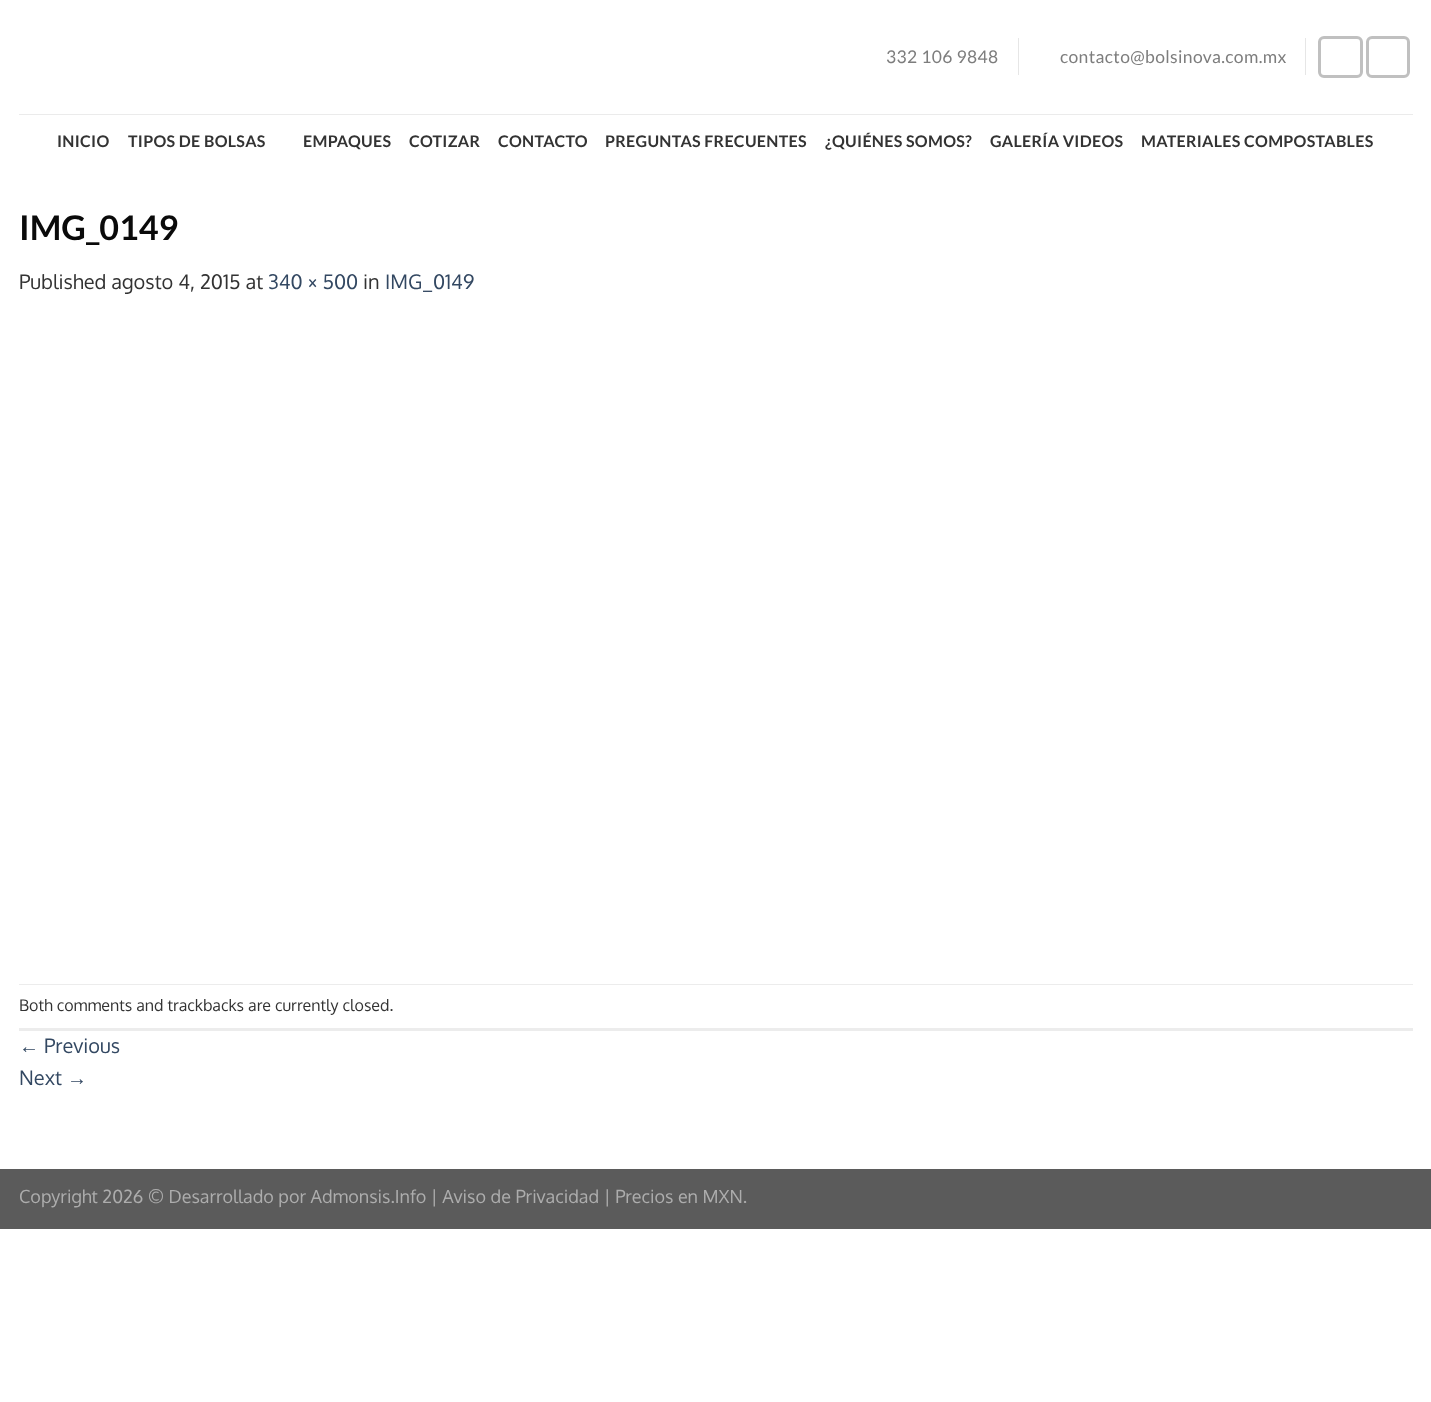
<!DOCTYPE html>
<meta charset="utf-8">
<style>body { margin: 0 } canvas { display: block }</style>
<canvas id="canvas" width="1431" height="1402"></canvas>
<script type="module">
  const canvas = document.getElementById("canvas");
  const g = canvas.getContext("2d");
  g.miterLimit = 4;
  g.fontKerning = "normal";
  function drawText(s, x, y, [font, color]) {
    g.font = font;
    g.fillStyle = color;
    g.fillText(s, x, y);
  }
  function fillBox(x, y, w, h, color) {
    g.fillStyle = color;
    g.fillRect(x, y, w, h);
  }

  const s1 = ["17.5px Lato", "#7D7D7D"];
  const s2 = ["bold 16px Lato", "#333333"];
  const s3 = ["bold 34px Lato", "#0A0A0A"];
  const s4 = ["20px Oxygen", "#333333"];
  const s5 = ["20px Oxygen", "#334862"];
  const s6 = ["16px Oxygen", "#333333"];
  const s7 = ["20px Liberation Sans", "#334862"];
  const s8 = ["18px Oxygen", "#ADADAD"];

  fillBox(0, 0, 1431, 1402, "#FFFFFF");
  g.letterSpacing = "0.35px";
  drawText("332 106 9848", 886, 63, s1);
  fillBox(1018, 38, 1, 37, "#E6E6E6");
  drawText("contacto@bolsinova.com.mx", 1060, 63, s1);
  fillBox(1305, 38, 1, 37, "#E6E6E6");
  g.beginPath();
  g.roundRect(1319.5, 37.5, 42, 39, 4.5);
  g.strokeStyle = "#C0C0C0";
  g.lineWidth = 3;
  g.stroke();
  g.beginPath();
  g.roundRect(1367.5, 37.5, 41, 39, 4.5);
  g.stroke();
  fillBox(19, 114, 1394, 1, "#EBEBEB");
  g.letterSpacing = "0.3px";
  drawText("INICIO", 57, 147, s2);
  drawText("TIPOS DE BOLSAS", 128, 147, s2);
  drawText("EMPAQUES", 303, 147, s2);
  drawText("COTIZAR", 409, 147, s2);
  drawText("CONTACTO", 498, 147, s2);
  drawText("PREGUNTAS FRECUENTES", 605, 147, s2);
  drawText("¿QUIÉNES SOMOS?", 825, 147, s2);
  drawText("GALERÍA VIDEOS", 990, 147, s2);
  drawText("MATERIALES COMPOSTABLES", 1141, 147, s2);
  g.letterSpacing = "0px";
  drawText("IMG_0149", 19, 240, s3);
  drawText("Published agosto 4, 2015 at", 19, 289, s4);
  drawText("340 × 500", 268, 289, s5);
  drawText("in", 363, 289, s4);
  drawText("IMG_0149", 385, 289, s5);
  fillBox(19, 984, 1394, 1, "#ECECEC");
  fillBox(19, 1028, 1394, 3, "#ECECEC");
  drawText("Both comments and trackbacks are currently closed.", 19, 1011, s6);
  drawText("←", 19, 1053, s7);
  drawText("Previous", 44, 1053, s5);
  drawText("Next", 19, 1085, s5);
  drawText("→", 67, 1085, s7);
  fillBox(0, 1169, 1431, 60, "#5B5B5B");
  drawText("Copyright 2026 © Desarrollado por Admonsis.Info | Aviso de Privacidad | Precios en MXN.", 19, 1203, s8);
</script>
